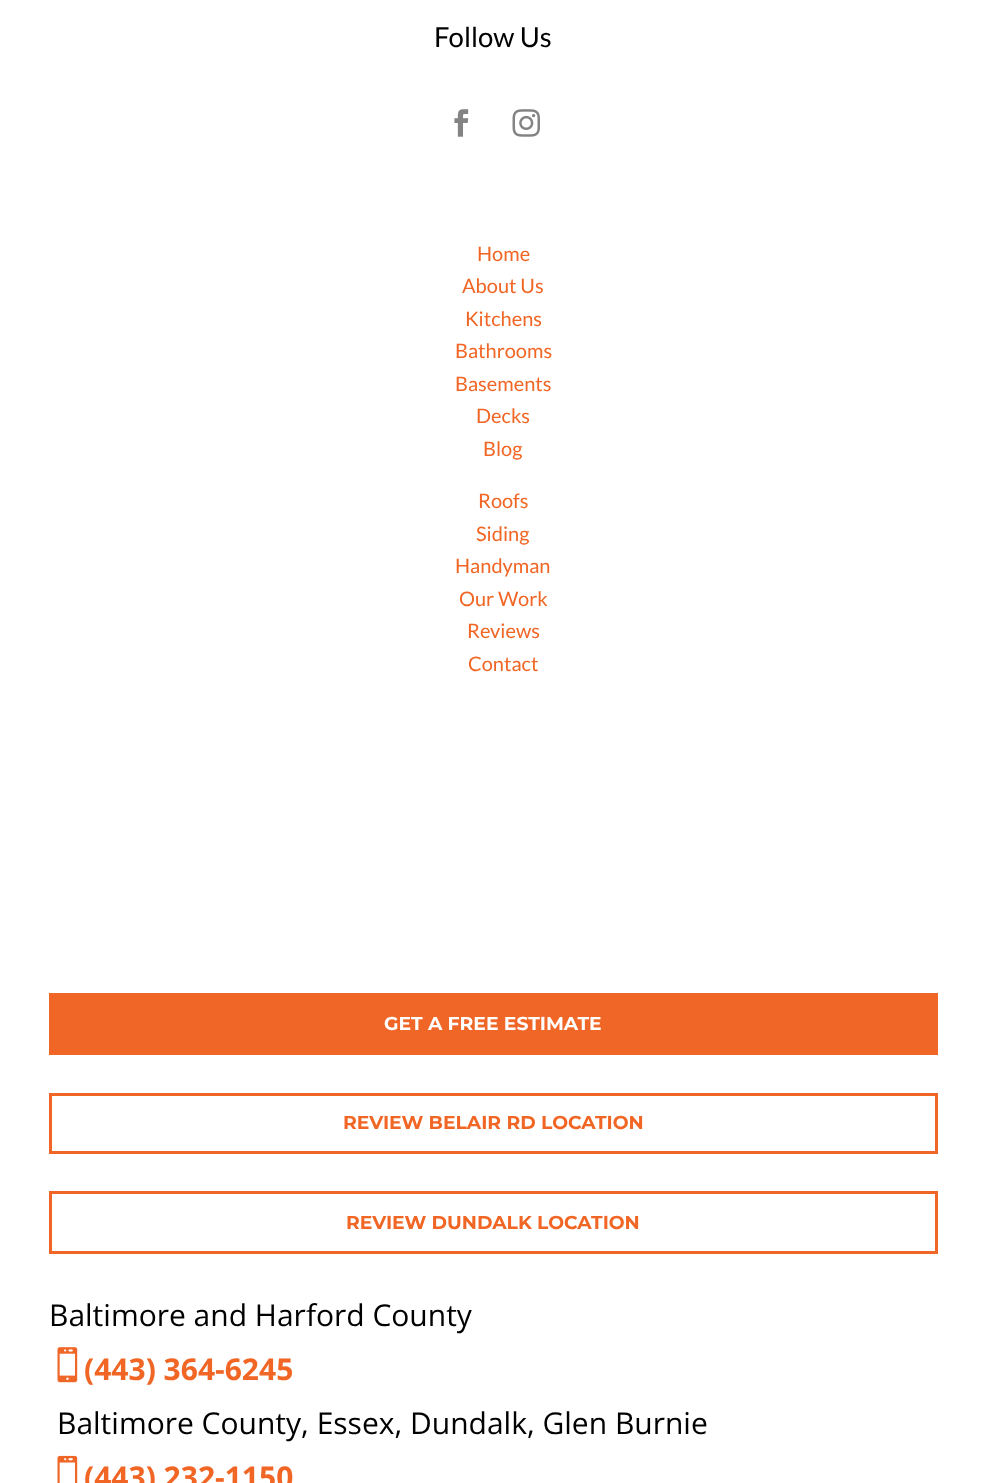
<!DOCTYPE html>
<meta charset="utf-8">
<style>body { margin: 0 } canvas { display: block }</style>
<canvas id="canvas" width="986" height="1483"></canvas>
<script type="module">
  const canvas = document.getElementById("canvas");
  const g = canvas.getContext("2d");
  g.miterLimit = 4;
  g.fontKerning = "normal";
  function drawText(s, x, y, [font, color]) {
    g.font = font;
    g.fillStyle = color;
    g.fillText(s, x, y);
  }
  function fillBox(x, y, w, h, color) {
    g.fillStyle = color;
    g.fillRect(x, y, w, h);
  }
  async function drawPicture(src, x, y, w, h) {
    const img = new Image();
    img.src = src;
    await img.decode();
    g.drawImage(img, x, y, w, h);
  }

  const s1 = ["27.5px Lato", "#000000"];
  const s2 = ["20px Lato", "#F16625"];
  const s3 = ["bold 18.75px Montserrat", "#FFFFFF"];
  const s4 = ["bold 18.75px Montserrat", "#F16625"];
  const s5 = ["30px Open Sans", "#000000"];
  const s6 = ["bold 30px Open Sans", "#F16625"];

  fillBox(0, 0, 986, 1483, "#FFFFFF");
  drawText("Follow Us", 434, 47, s1);
  await drawPicture("pic1.png", 454, 109, 15, 28);
  await drawPicture("pic2.png", 512, 109, 28, 28);
  drawText("Home", 477, 261, s2);
  drawText("About Us", 462, 293, s2);
  drawText("Kitchens", 465, 326, s2);
  drawText("Bathrooms", 455, 358, s2);
  drawText("Basements", 455, 391, s2);
  drawText("Decks", 476, 423, s2);
  drawText("Blog", 483, 456, s2);
  drawText("Roofs", 478, 508, s2);
  drawText("Siding", 476, 541, s2);
  drawText("Handyman", 455, 573, s2);
  drawText("Our Work", 459, 606, s2);
  drawText("Reviews", 467, 638, s2);
  drawText("Contact", 468, 671, s2);
  fillBox(49, 993, 889, 62, "#F06627");
  drawText("GET A FREE ESTIMATE", 384, 1030, s3);
  g.strokeStyle = "#F06627";
  g.lineWidth = 3;
  g.strokeRect(50.5, 1094.5, 886, 58);
  drawText("REVIEW BELAIR RD LOCATION", 343, 1129, s4);
  g.strokeRect(50.5, 1192.5, 886, 60);
  drawText("REVIEW DUNDALK LOCATION", 346, 1229, s4);
  drawText("Baltimore and Harford County", 49, 1326, s5);
  await drawPicture("pic3.png", 57, 1347, 21, 36);
  drawText("(443) 364-6245", 84, 1380, s6);
  drawText("Baltimore County, Essex, Dundalk, Glen Burnie", 57, 1434, s5);
  await drawPicture("pic4.png", 57, 1455, 21, 28);
  drawText("(443) 232-1150", 84, 1488, s6);
</script>
